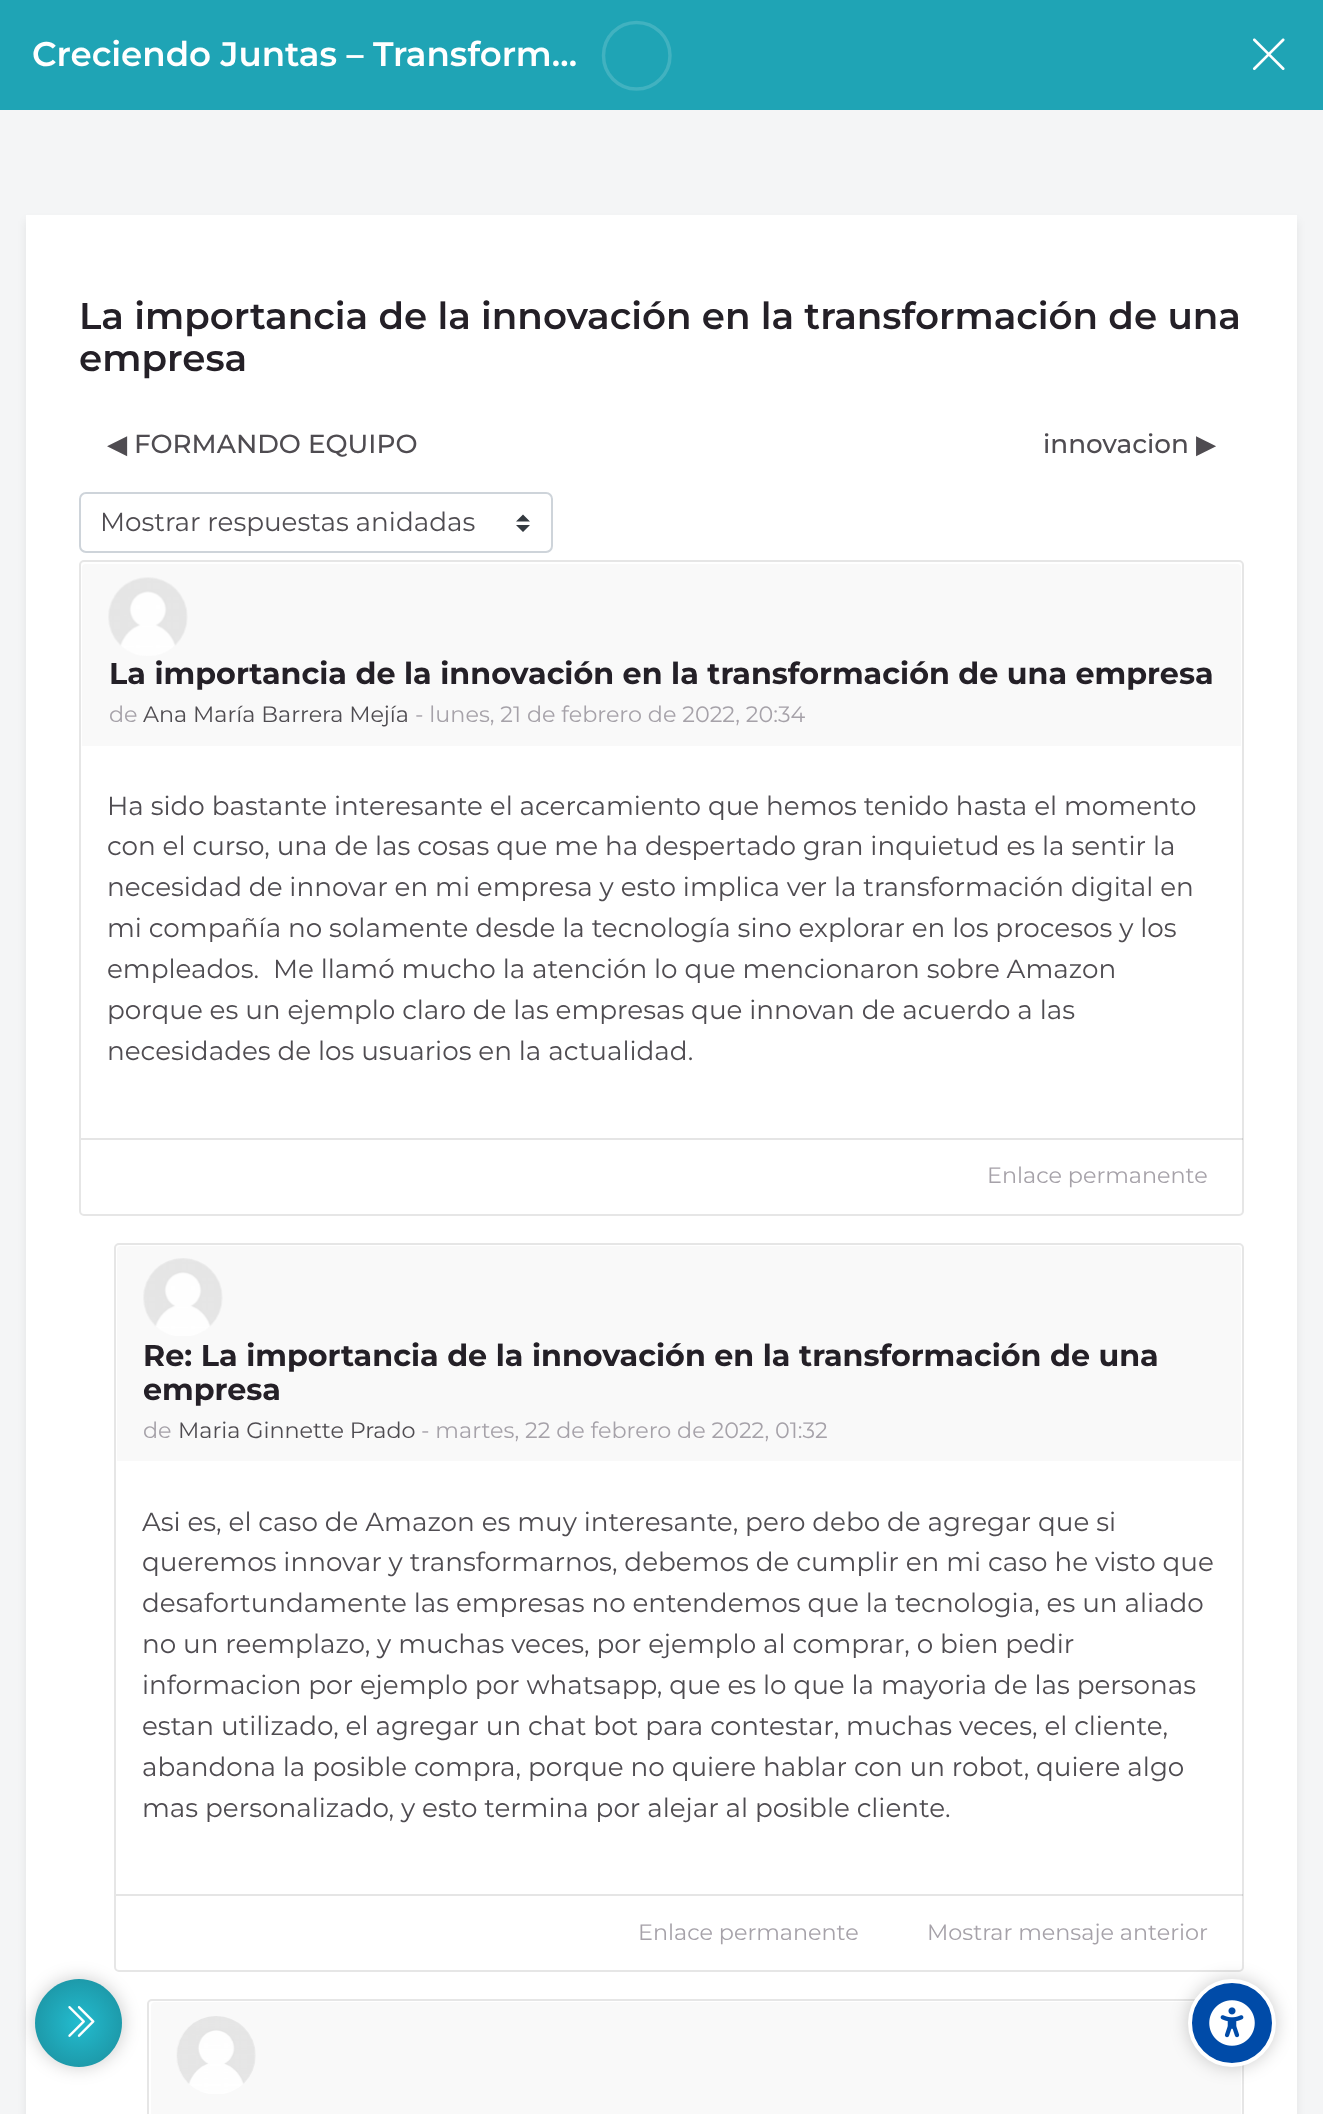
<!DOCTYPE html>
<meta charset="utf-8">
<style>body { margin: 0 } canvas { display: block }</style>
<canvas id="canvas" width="1323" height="2114"></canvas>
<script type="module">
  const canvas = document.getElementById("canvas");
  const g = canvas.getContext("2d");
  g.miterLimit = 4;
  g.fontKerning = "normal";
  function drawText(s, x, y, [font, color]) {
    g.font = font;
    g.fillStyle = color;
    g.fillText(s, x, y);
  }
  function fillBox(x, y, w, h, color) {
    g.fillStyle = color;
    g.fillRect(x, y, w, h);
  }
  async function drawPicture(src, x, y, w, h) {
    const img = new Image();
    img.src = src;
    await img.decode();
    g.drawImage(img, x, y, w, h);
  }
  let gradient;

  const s1 = ["600 34.1px Montserrat", "#FFFFFF"];
  const s2 = ["600 37.25px Montserrat", "#242027"];
  const s3 = ["26.25px DejaVu Sans", "#4F4C51"];
  const s4 = ["500 26.25px Montserrat", "#4F4C51"];
  const s5 = ["26.25px Montserrat", "#4F4C51"];
  const s6 = ["bold 30.2px Montserrat", "#242027"];
  const s7 = ["22.3px Montserrat", "#A6A2A9"];
  const s8 = ["22.3px Montserrat", "#4F4C51"];

  fillBox(0, 0, 1323, 2114, "#F4F5F6");
  fillBox(0, 0, 1323, 110, "#1FA4B5");
  drawText("Creciendo Juntas – Transform…", 32, 66, s1);
  g.beginPath();
  g.moveTo(603.5, 55.5);
  g.bezierCurveTo(603.5, 37, 618, 22.5, 636.5, 22.5);
  g.bezierCurveTo(655, 22.5, 670, 37, 670, 55.5);
  g.bezierCurveTo(670, 74, 655, 89, 636.5, 89);
  g.bezierCurveTo(618, 89, 603.5, 74, 603.5, 55.5);
  g.closePath();
  g.strokeStyle = "#41B2C0";
  g.lineWidth = 3.5;
  g.stroke();
  await drawPicture("pic1.png", 1252, 38, 33, 33);
  g.fillStyle = "rgba(0, 0, 0, 0.07)";
  g.filter = "blur(5px)";
  g.beginPath();
  g.rect(26, 221, 1271, 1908);
  g.fill();
  g.filter = "none";
  fillBox(26, 215, 1271, 1899, "#FFFFFF");
  drawText("La importancia de la innovación en la transformación de una", 79, 329, s2);
  drawText("empresa", 79, 371, s2);
  drawText("◀︎", 107, 453, s3);
  drawText("FORMANDO EQUIPO", 134, 453, s4);
  drawText("innovacion", 1043, 453, s4);
  drawText("▶︎", 1196, 453, s3);
  g.fillStyle = "#343A40";
  g.beginPath();
  g.moveTo(523, 514.5);
  g.lineTo(516, 521.5);
  g.lineTo(530, 521.5);
  g.closePath();
  g.moveTo(523, 532);
  g.lineTo(516, 525);
  g.lineTo(530, 525);
  g.closePath();
  g.fill();
  g.beginPath();
  g.roundRect(80, 493, 472, 59, 6);
  g.strokeStyle = "#CED4DA";
  g.lineWidth = 2;
  g.stroke();
  drawText("Mostrar respuestas anidadas", 100, 531, s5);
  g.beginPath();
  g.roundRect(80, 561, 1163, 654, 4);
  g.strokeStyle = "#E6E6E6";
  g.stroke();
  g.fillStyle = "#F9F9F9";
  g.beginPath();
  g.roundRect(82, 564, 1159, 182, [4, 4, 0, 0]);
  g.fill();
  await drawPicture("pic2.png", 108, 577, 80, 79);
  drawText("La importancia de la innovación en la transformación de una empresa", 109, 684, s6);
  drawText("de", 109, 722, s7);
  drawText("Ana María Barrera Mejía", 143, 722, s8);
  drawText("- lunes, 21 de febrero de 2022, 20:34", 415, 722, s7);
  drawText("Ha sido bastante interesante el acercamiento que hemos tenido hasta el momento", 107, 815, s5);
  drawText("con el curso, una de las cosas que me ha despertado gran inquietud es la sentir la", 107, 855, s5);
  drawText("necesidad de innovar en mi empresa y esto implica ver la transformación digital en", 107, 896, s5);
  drawText("mi compañía no solamente desde la tecnología sino explorar en los procesos y los", 107, 937, s5);
  drawText("empleados.  Me llamó mucho la atención lo que mencionaron sobre Amazon", 107, 978, s5);
  drawText("porque es un ejemplo claro de las empresas que innovan de acuerdo a las", 107, 1019, s5);
  drawText("necesidades de los usuarios en la actualidad.", 107, 1060, s5);
  fillBox(81, 1138, 1162, 2, "rgba(0, 0, 0, 0.1)");
  drawText("Enlace permanente", 987, 1183, s7);
  g.beginPath();
  g.roundRect(115, 1244, 1128, 727, 4);
  g.stroke();
  g.fillStyle = "#F9F9F9";
  g.beginPath();
  g.roundRect(117, 1246, 1124, 215, [4, 4, 0, 0]);
  g.fill();
  await drawPicture("pic3.png", 143, 1258, 80, 78);
  drawText("Re: La importancia de la innovación en la transformación de una", 143, 1366, s6);
  drawText("empresa", 143, 1400, s6);
  drawText("de", 143, 1438, s7);
  drawText("Maria Ginnette Prado", 178, 1438, s8);
  drawText("- martes, 22 de febrero de 2022, 01:32", 421, 1438, s7);
  drawText("Asi es, el caso de Amazon es muy interesante, pero debo de agregar que si", 142, 1531, s5);
  drawText("queremos innovar y transformarnos, debemos de cumplir en mi caso he visto que", 142, 1571, s5);
  drawText("desafortundamente las empresas no entendemos que la tecnologia, es un aliado", 142, 1612, s5);
  drawText("no un reemplazo, y muchas veces, por ejemplo al comprar, o bien pedir", 142, 1653, s5);
  drawText("informacion por ejemplo por whatsapp, que es lo que la mayoria de las personas", 142, 1694, s5);
  drawText("estan utilizado, el agregar un chat bot para contestar, muchas veces, el cliente,", 142, 1735, s5);
  drawText("abandona la posible compra, porque no quiere hablar con un robot, quiere algo", 142, 1776, s5);
  drawText("mas personalizado, y esto termina por alejar al posible cliente.", 142, 1817, s5);
  fillBox(116, 1894, 1127, 2, "rgba(0, 0, 0, 0.1)");
  drawText("Enlace permanente", 638, 1940, s7);
  drawText("Mostrar mensaje anterior", 927, 1940, s7);
  g.beginPath();
  g.roundRect(148, 2000, 1095, 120, 4);
  g.stroke();
  g.fillStyle = "#F9F9F9";
  g.beginPath();
  g.roundRect(151, 2002, 1090, 112, [4, 4, 0, 0]);
  g.fill();
  await drawPicture("pic4.png", 176, 2016, 80, 78);
  g.fillStyle = "rgba(0, 0, 0, 0.2)";
  g.filter = "blur(9px)";
  g.beginPath();
  g.roundRect(35, 1979, 88, 88, 44);
  g.fill();
  g.filter = "none";
  gradient = g.createRadialGradient(79, 2023, 0, 79, 2023, 62);
  gradient.addColorStop(0, "#23BCCF");
  gradient.addColorStop(1, "#1B8C9B");
  g.fillStyle = gradient;
  g.beginPath();
  g.moveTo(79, 1979);
  g.bezierCurveTo(55, 1979, 35, 1999, 35, 2023);
  g.bezierCurveTo(35, 2047, 55, 2067, 79, 2067);
  g.bezierCurveTo(103, 2067, 122, 2047, 122, 2023);
  g.bezierCurveTo(122, 1999, 103, 1979, 79, 1979);
  g.closePath();
  g.fill();
  await drawPicture("pic5.png", 68, 2006, 27, 31);
  g.fillStyle = "rgba(0, 0, 0, 0.2)";
  g.filter = "blur(9px)";
  g.beginPath();
  g.roundRect(1188, 1979, 88, 88, 44);
  g.fill();
  g.filter = "none";
  g.fillStyle = "#004BA8";
  g.beginPath();
  g.arc(1232, 2023, 42, 0, Math.PI * 2);
  g.fill();
  g.strokeStyle = "#FFFFFF";
  g.lineWidth = 4;
  g.stroke();
  await drawPicture("pic6.png", 1209, 2000, 46, 46);
</script>
